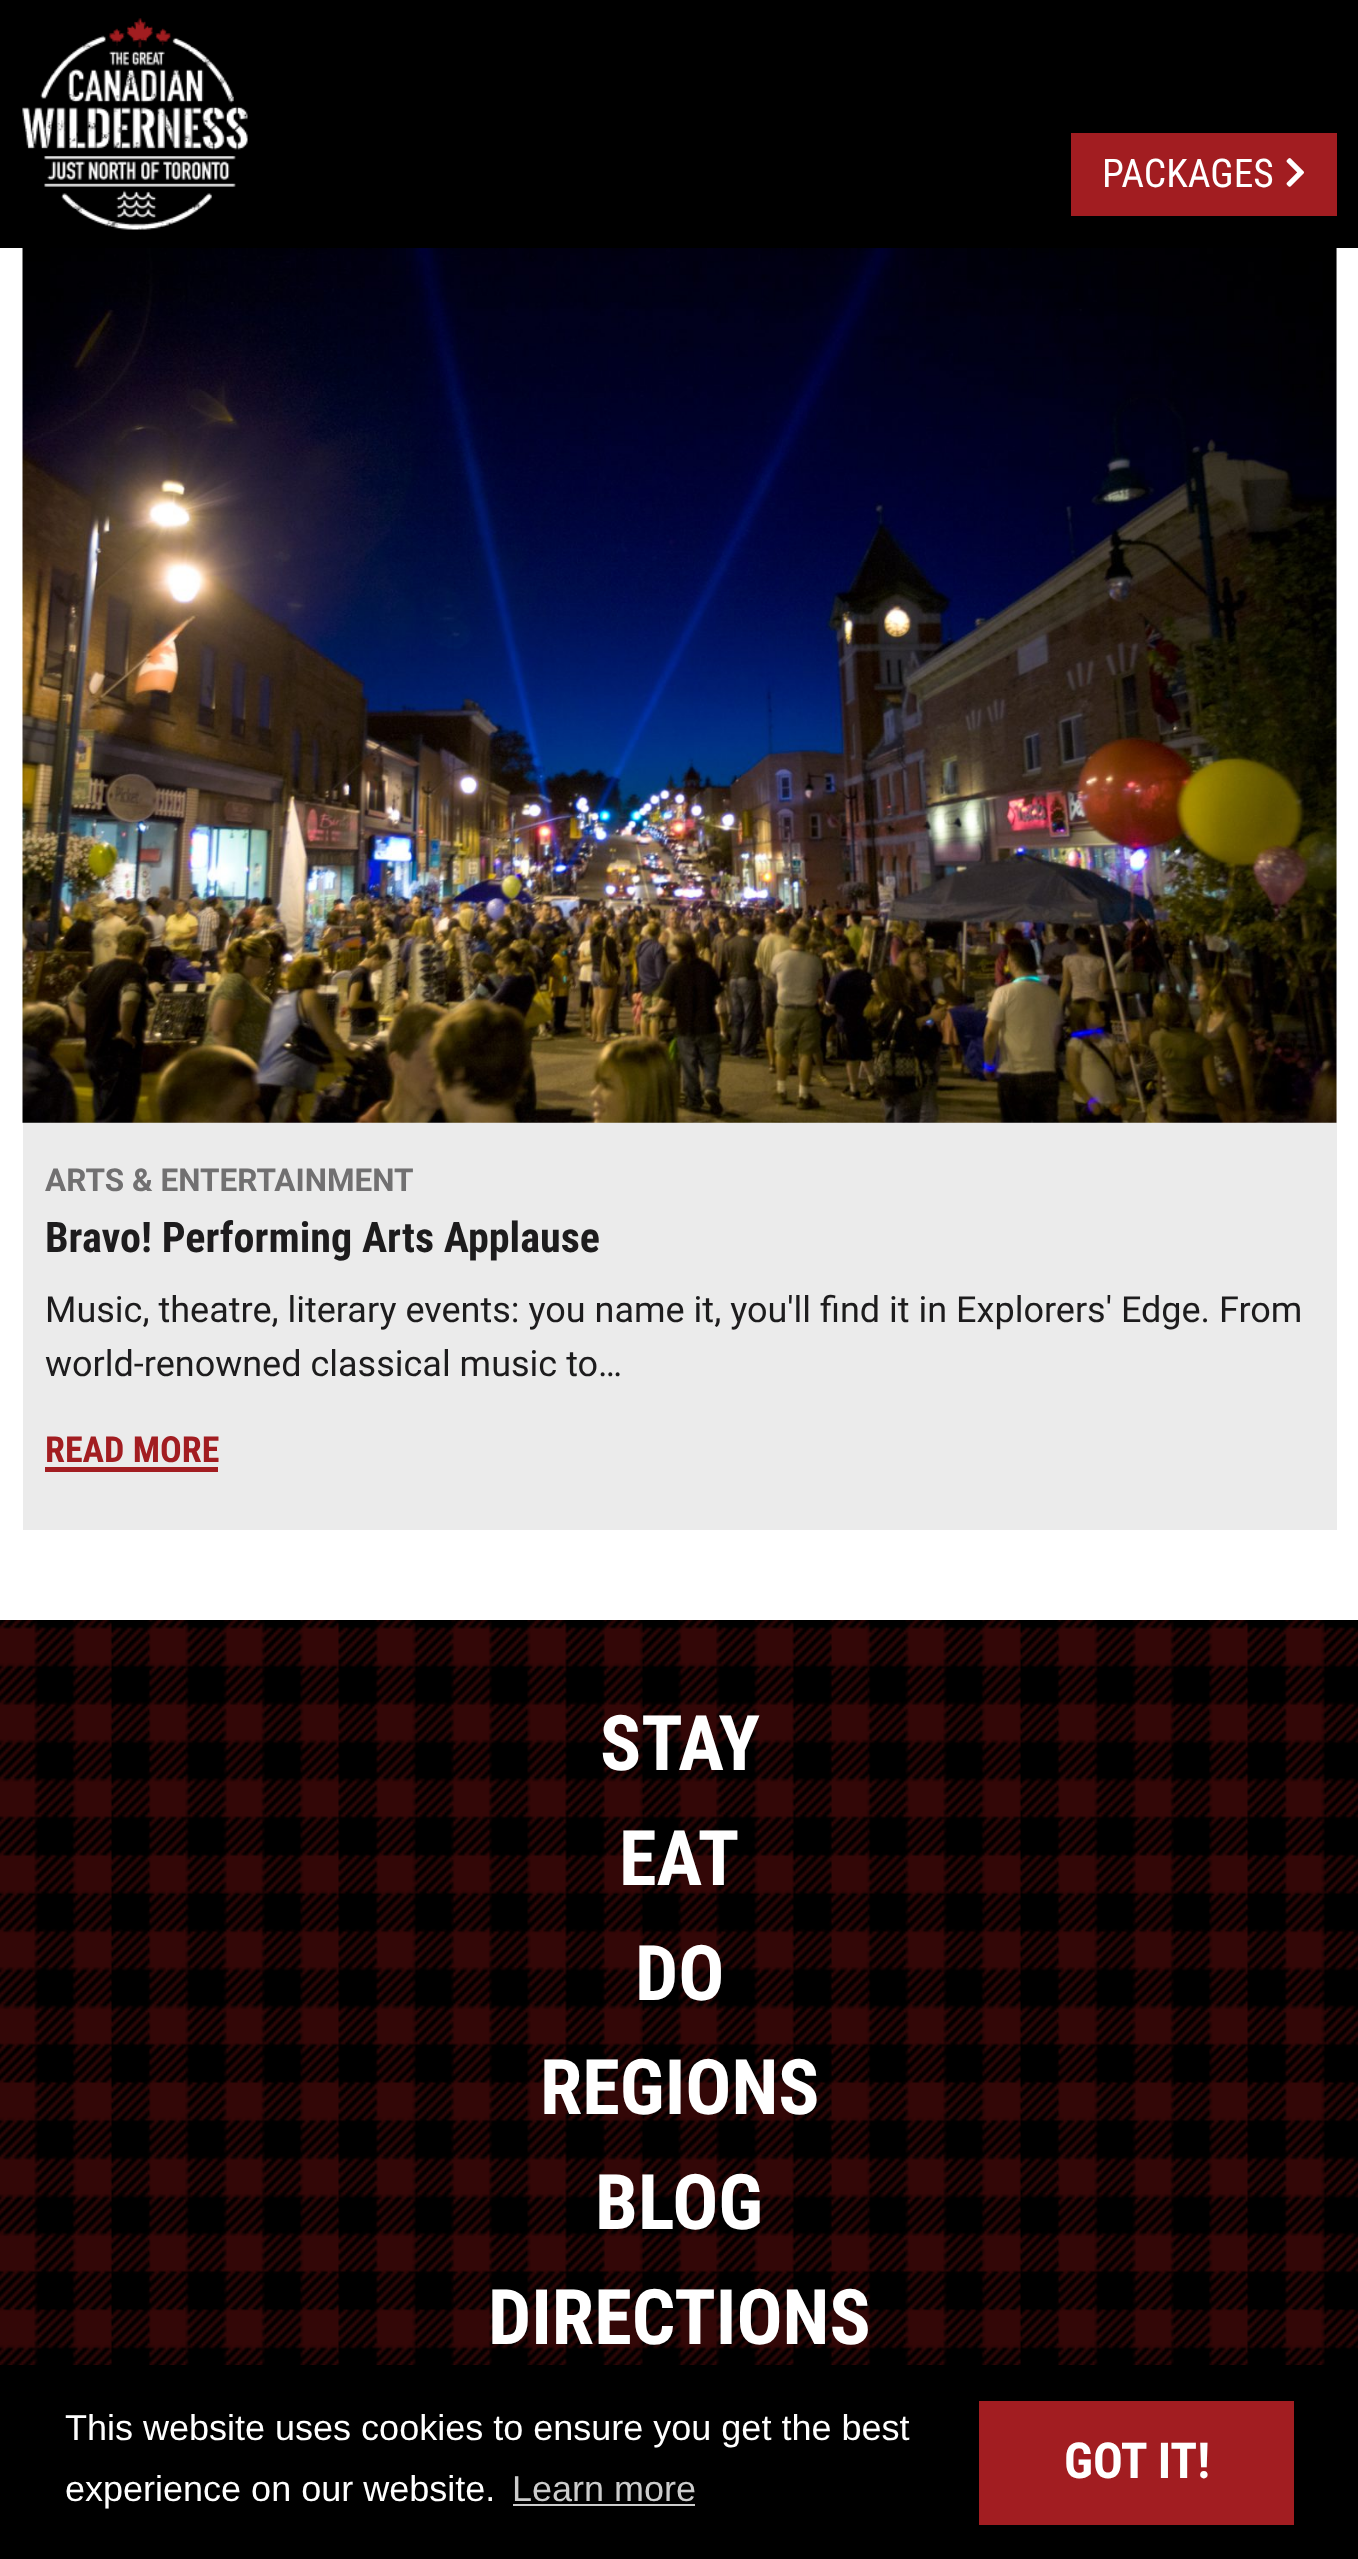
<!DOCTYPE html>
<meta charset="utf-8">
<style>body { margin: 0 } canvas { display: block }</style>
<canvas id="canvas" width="1358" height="2559"></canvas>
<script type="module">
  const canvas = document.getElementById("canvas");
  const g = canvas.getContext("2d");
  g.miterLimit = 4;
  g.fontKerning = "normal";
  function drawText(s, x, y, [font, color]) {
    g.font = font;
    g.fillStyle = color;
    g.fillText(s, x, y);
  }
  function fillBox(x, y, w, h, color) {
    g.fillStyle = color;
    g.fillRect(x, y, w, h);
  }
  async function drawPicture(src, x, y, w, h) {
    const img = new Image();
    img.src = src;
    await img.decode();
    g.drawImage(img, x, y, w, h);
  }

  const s1 = ["39.5px Roboto Condensed", "#FFFFFF"];
  const s2 = ["bold 31.5px Roboto", "#717071"];
  const s3 = ["bold 42.1px Roboto Condensed", "#1D1C1D"];
  const s4 = ["36px Roboto", "#1D1C1D"];
  const s5 = ["bold 36px Roboto Condensed", "#A21D21"];
  const s6 = ["bold 76.5px Roboto Condensed", "#FFFFFF"];
  const s7 = ["36px Liberation Sans", "#FFFFFF"];
  const s8 = ["36px Liberation Sans", "#CCCCCC"];
  const s9 = ["bold 49.5px Roboto Condensed", "#FFFFFF"];

  fillBox(0, 0, 1358, 2559, "#FFFFFF");
  fillBox(0, 0, 1358, 248, "#000000");
  await drawPicture("pic1.png", 22, 18, 226, 212);
  fillBox(1071, 133, 266, 83, "#A21D21");
  drawText("PACKAGES", 1102, 187, s1);
  await drawPicture("pic2.png", 1286, 158, 18, 29);
  fillBox(23, 248, 1314, 1282, "#EBEBEB");
  await drawPicture("pic3.png", 22, 248, 1315, 875);
  drawText("ARTS & ENTERTAINMENT", 45, 1191, s2);
  drawText("Bravo! Performing Arts Applause", 45, 1252, s3);
  drawText("Music, theatre, literary events: you name it, you'll find it in Explorers' Edge. From", 45, 1322, s4);
  drawText("world-renowned classical music to…", 45, 1376, s4);
  fillBox(45, 1467, 173, 5, "#A21D21");
  drawText("READ MORE", 45, 1462, s5);
  await drawPicture("pic4.png", 0, 1620, 1358, 745);
  drawText("STAY", 600, 1770, s6);
  drawText("EAT", 619, 1885, s6);
  drawText("DO", 635, 2000, s6);
  drawText("REGIONS", 540, 2114, s6);
  drawText("BLOG", 595, 2229, s6);
  drawText("DIRECTIONS", 488, 2344, s6);
  fillBox(0, 2365, 1358, 194, "#000000");
  drawText("This website uses cookies to ensure you get the best", 65, 2440, s7);
  drawText("experience on our website.", 65, 2501, s7);
  drawText("Learn more", 512, 2501, s8);
  fillBox(513, 2504, 182, 2, "#CCCCCC");
  fillBox(979, 2401, 315, 124, "#A21D21");
  drawText("GOT IT!", 1064, 2478, s9);
</script>
